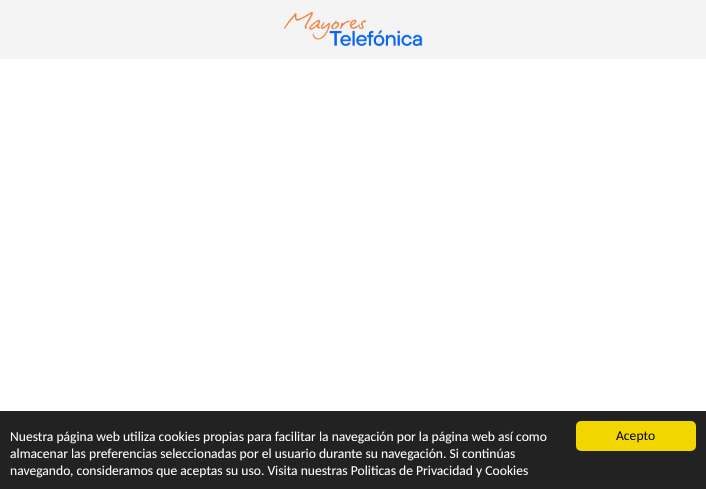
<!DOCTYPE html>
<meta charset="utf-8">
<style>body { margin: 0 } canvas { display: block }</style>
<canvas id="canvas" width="706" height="489"></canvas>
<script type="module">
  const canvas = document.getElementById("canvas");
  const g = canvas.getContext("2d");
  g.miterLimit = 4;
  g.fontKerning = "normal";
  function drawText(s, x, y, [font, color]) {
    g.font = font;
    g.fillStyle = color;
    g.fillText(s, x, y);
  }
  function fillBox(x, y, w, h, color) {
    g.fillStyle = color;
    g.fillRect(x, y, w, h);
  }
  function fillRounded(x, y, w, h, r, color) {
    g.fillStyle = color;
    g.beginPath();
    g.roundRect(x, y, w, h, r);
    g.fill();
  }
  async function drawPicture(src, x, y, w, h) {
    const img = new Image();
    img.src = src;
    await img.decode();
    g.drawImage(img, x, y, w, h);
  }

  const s1 = ["13.6px Carlito", "#FFFFFF"];
  const s2 = ["13.6px Carlito", "#000000"];

  fillBox(0, 0, 706, 489, "#FFFFFF");
  fillBox(0, 0, 706, 59, "#F5F4F4");
  await drawPicture("pic1.png", 283, 11, 140, 35);
  fillBox(0, 411, 706, 78, "#222222");
  drawText("Nuestra página web utiliza cookies propias para facilitar la navegación por la página web así como", 10, 441, s1);
  drawText("almacenar las preferencias seleccionadas por el usuario durante su navegación. Si continúas", 10, 458, s1);
  drawText("navegando, consideramos que aceptas su uso. Visita nuestras Politicas de Privacidad y Cookies", 10, 475, s1);
  fillRounded(576, 421, 120, 30, 5, "#F1D600");
  drawText("Acepto", 616, 440, s2);
</script>
